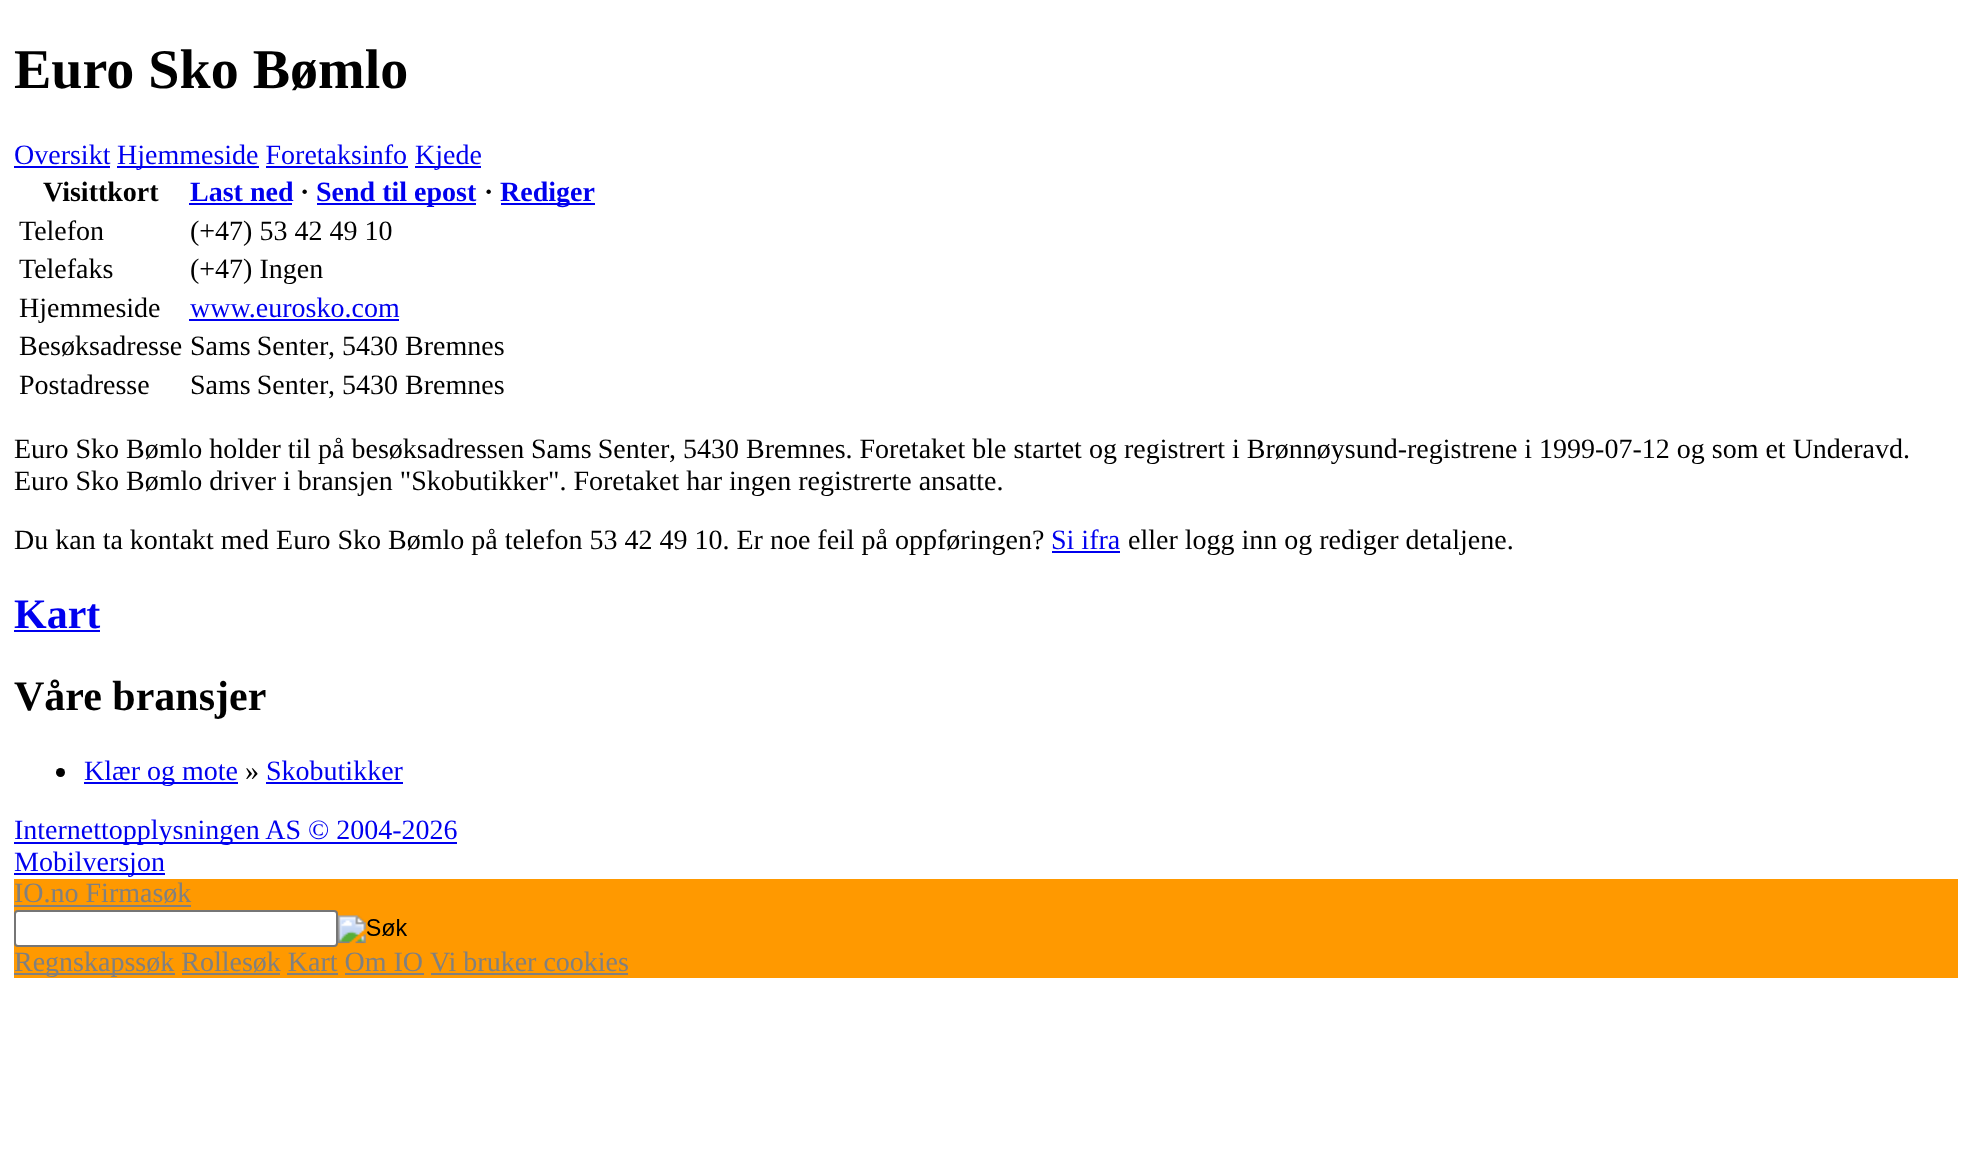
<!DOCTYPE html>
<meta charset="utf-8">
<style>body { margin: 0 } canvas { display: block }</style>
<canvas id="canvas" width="1972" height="1153"></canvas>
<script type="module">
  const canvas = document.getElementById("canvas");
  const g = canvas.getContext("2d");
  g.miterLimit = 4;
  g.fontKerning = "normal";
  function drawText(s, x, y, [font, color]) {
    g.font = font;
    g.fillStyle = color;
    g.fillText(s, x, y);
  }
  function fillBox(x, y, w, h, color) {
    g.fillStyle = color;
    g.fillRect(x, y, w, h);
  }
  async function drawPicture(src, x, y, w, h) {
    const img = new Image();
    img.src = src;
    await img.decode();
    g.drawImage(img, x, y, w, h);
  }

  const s1 = ["bold 56px Liberation Serif", "#000000"];
  const s2 = ["28px Liberation Serif", "#0000EE"];
  const s3 = ["bold 28px Liberation Serif", "#000000"];
  const s4 = ["bold 28px Liberation Serif", "#0000EE"];
  const s5 = ["28px Liberation Serif", "#000000"];
  const s6 = ["bold 42px Liberation Serif", "#0000EE"];
  const s7 = ["bold 42px Liberation Serif", "#000000"];
  const s8 = ["28px Liberation Serif", "#808080"];

  fillBox(0, 0, 1972, 1153, "#FFFFFF");
  drawText("Euro Sko Bømlo", 14, 88, s1);
  drawText("Oversikt", 14, 164, s2);
  fillBox(14, 166, 96, 2, "#0000EE");
  fillBox(117, 166, 142, 2, "#0000EE");
  drawText("Hjemmeside Foretaksinfo", 117, 164, s2);
  fillBox(415, 166, 66, 2, "#0000EE");
  drawText("Kjede", 415, 164, s2);
  fillBox(266, 166, 142, 2, "#0000EE");
  drawText("Visittkort", 43, 201, s3);
  drawText("Last ned", 190, 201, s4);
  fillBox(189, 203, 103, 2, "#0000EE");
  drawText("·", 300, 201, s3);
  fillBox(317, 203, 159, 2, "#0000EE");
  drawText("Send til epost", 316, 201, s4);
  drawText("·", 484, 201, s3);
  fillBox(501, 203, 94, 2, "#0000EE");
  drawText("Rediger", 500, 201, s4);
  drawText("Telefon", 19, 240, s5);
  drawText("(+47) 53 42 49 10", 190, 240, s5);
  drawText("Telefaks", 19, 278, s5);
  drawText("(+47) Ingen", 190, 278, s5);
  drawText("Hjemmeside", 19, 317, s5);
  drawText("www.eurosko.com", 190, 317, s2);
  fillBox(189, 319, 210, 2, "#0000EE");
  drawText("Besøksadresse", 19, 355, s5);
  g.wordSpacing = "-1px";
  drawText("Sams Senter", 190, 355, s5);
  g.wordSpacing = "0px";
  drawText(", 5430 Bremnes", 328, 355, s5);
  drawText("Postadresse", 19, 394, s5);
  g.wordSpacing = "-1px";
  drawText("Sams Senter", 190, 394, s5);
  g.wordSpacing = "0px";
  drawText(", 5430 Bremnes", 328, 394, s5);
  drawText("Euro Sko Bømlo holder til på besøksadressen", 14, 458, s5);
  g.wordSpacing = "-1px";
  drawText("Sams Senter", 531, 458, s5);
  g.wordSpacing = "0px";
  drawText(", 5430 Bremnes. Foretaket ble startet og registrert i Brønnøysund-registrene i 1999-07-12 og som et Underavd.", 669, 458, s5);
  drawText("Euro Sko Bømlo driver i bransjen \"Skobutikker\". Foretaket har ingen registrerte ansatte.", 14, 490, s5);
  drawText("Du kan ta kontakt med Euro Sko Bømlo på telefon 53 42 49 10. Er noe feil på oppføringen?", 14, 549, s5);
  drawText("Si ifra", 1051, 549, s2);
  fillBox(1052, 551, 68, 2, "#0000EE");
  drawText("eller logg inn og rediger detaljene.", 1128, 549, s5);
  drawText("Kart", 14, 628, s6);
  fillBox(14, 630, 86, 2, "#0000EE");
  drawText("Våre bransjer", 14, 710, s7);
  g.beginPath();
  g.arc(60.5, 772.5, 4.5, 0, Math.PI * 2);
  g.fill();
  fillBox(84, 782, 154, 2, "#0000EE");
  drawText("Klær og mote", 84, 780, s2);
  drawText("»", 245, 780, s5);
  drawText("Skobutikker", 266, 780, s2);
  fillBox(266, 782, 137, 2, "#0000EE");
  fillBox(14, 842, 443, 2, "#0000EE");
  drawText("Internettopplysningen AS © 2004-2026", 14, 839, s2);
  fillBox(14, 873, 151, 2, "#0000EE");
  drawText("Mobilversjon", 14, 871, s2);
  fillBox(14, 879, 1944, 99, "#FF9900");
  drawText("IO.no Firmasøk", 14, 902, s8);
  fillBox(14, 905, 177, 2, "#808080");
  g.fillStyle = "#FFFFFF";
  g.beginPath();
  g.roundRect(15, 911, 322, 35, 3);
  g.fill();
  g.strokeStyle = "#767676";
  g.lineWidth = 2;
  g.stroke();
  await drawPicture("pic1.png", 338, 915, 69, 29);
  fillBox(14, 973, 161, 2, "#808080");
  drawText("Regnskapssøk Rollesøk Kart Om IO", 14, 971, s8);
  drawText("Vi bruker cookies", 430, 971, s8);
  fillBox(431, 973, 197, 2, "#808080");
  fillBox(182, 973, 98, 2, "#808080");
  fillBox(287, 973, 51, 2, "#808080");
  fillBox(345, 973, 79, 2, "#808080");
</script>
